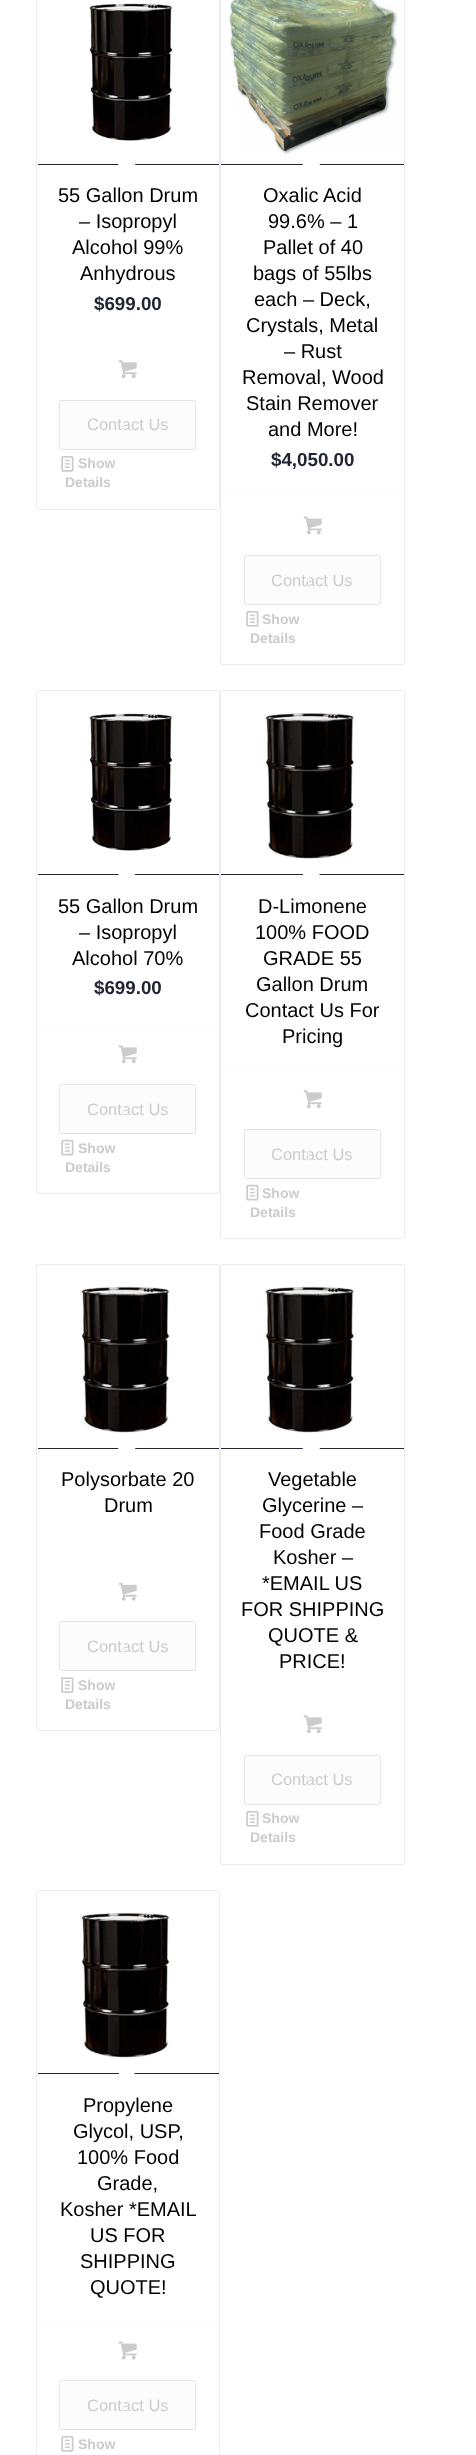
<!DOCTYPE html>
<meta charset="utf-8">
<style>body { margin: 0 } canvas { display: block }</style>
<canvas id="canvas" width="476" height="2455"></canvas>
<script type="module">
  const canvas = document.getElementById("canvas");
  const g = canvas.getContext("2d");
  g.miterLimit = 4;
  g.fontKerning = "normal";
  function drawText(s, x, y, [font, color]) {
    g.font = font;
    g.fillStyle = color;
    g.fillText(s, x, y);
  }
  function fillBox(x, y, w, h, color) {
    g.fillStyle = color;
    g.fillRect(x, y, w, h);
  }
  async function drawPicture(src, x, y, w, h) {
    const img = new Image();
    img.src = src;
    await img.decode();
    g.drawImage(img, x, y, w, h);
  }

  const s1 = ["20px Liberation Sans", "#000000"];
  const s2 = ["bold 18.75px Liberation Sans", "#222533"];
  const s3 = ["16.5px Liberation Sans", "#CCCCCC"];
  const s4 = ["bold 14px Liberation Sans", "#CCCCCC"];

  fillBox(0, 0, 476, 2455, "#FFFFFF");
  g.beginPath();
  g.roundRect(36.5, -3.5, 183, 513, 2);
  g.strokeStyle = "#EBEBEB";
  g.stroke();
  await drawPicture("pic1.png", 89, 3, 84, 138);
  fillBox(38, 164, 181, 1, "#222533");
  g.fillStyle = "#FFFFFF";
  g.beginPath();
  g.moveTo(127, 156);
  g.lineTo(135.5, 164.5);
  g.lineTo(127, 173.5);
  g.lineTo(118, 164.5);
  g.closePath();
  g.fill();
  drawText("55 Gallon Drum", 58, 202, s1);
  drawText("– Isopropyl", 79, 228, s1);
  drawText("Alcohol 99%", 72, 254, s1);
  drawText("Anhydrous", 80, 280, s1);
  drawText("$699.00", 94, 310, s2);
  fillBox(38, 339, 181, 1, "#FBFBFB");
  g.fillStyle = "#FCFCFC";
  g.beginPath();
  g.roundRect(59.5, 400.5, 136, 49, 2);
  g.fill();
  g.strokeStyle = "#E4E4E4";
  g.stroke();
  drawText("Contact Us", 87, 430, s3);
  fillBox(123, 416, 1, 18, "#FBFBFB");
  await drawPicture("pic2.png", 118, 360, 19, 19);
  await drawPicture("pic3.png", 61, 456, 13, 16);
  drawText("Show", 78, 468, s4);
  drawText("Details", 65, 487, s4);
  g.beginPath();
  g.roundRect(220.5, -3.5, 184, 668, 2);
  g.strokeStyle = "#EBEBEB";
  g.stroke();
  await drawPicture("pic4.png", 229, 0, 169, 155);
  fillBox(221, 164, 183, 1, "#222533");
  g.fillStyle = "#FFFFFF";
  g.beginPath();
  g.moveTo(311.5, 156);
  g.lineTo(320, 164.5);
  g.lineTo(311.5, 173.5);
  g.lineTo(302.5, 164.5);
  g.closePath();
  g.fill();
  drawText("Oxalic Acid", 263, 202, s1);
  drawText("99.6% – 1", 268, 228, s1);
  drawText("Pallet of 40", 263, 254, s1);
  drawText("bags of 55lbs", 253, 280, s1);
  drawText("each – Deck,", 254, 306, s1);
  drawText("Crystals, Metal", 246, 332, s1);
  drawText("– Rust", 284, 358, s1);
  drawText("Removal, Wood", 242, 384, s1);
  drawText("Stain Remover", 246, 410, s1);
  drawText("and More!", 268, 436, s1);
  drawText("$4,050.00", 271, 466, s2);
  fillBox(221, 495, 183, 1, "#FBFBFB");
  g.fillStyle = "#FCFCFC";
  g.beginPath();
  g.roundRect(244.5, 555.5, 136, 49, 2);
  g.fill();
  g.strokeStyle = "#E4E4E4";
  g.stroke();
  drawText("Contact Us", 271, 586, s3);
  fillBox(308, 573, 1, 17, "#FBFBFB");
  await drawPicture("pic5.png", 303, 516, 19, 19);
  await drawPicture("pic3.png", 246, 611, 13, 16);
  drawText("Show", 262, 624, s4);
  drawText("Details", 250, 643, s4);
  g.beginPath();
  g.roundRect(36.5, 690.5, 183, 503, 2);
  g.strokeStyle = "#EBEBEB";
  g.stroke();
  await drawPicture("pic6.png", 89, 713, 84, 138);
  fillBox(38, 874, 181, 1, "#222533");
  g.fillStyle = "#FFFFFF";
  g.beginPath();
  g.moveTo(127, 866.5);
  g.lineTo(135.5, 875);
  g.lineTo(127, 884);
  g.lineTo(118, 875);
  g.closePath();
  g.fill();
  drawText("55 Gallon Drum", 58, 913, s1);
  drawText("– Isopropyl", 79, 939, s1);
  drawText("Alcohol 70%", 72, 965, s1);
  drawText("$699.00", 94, 994, s2);
  fillBox(38, 1024, 181, 1, "#FBFBFB");
  g.fillStyle = "#FCFCFC";
  g.beginPath();
  g.roundRect(59.5, 1084.5, 136, 49, 2);
  g.fill();
  g.strokeStyle = "#E4E4E4";
  g.stroke();
  drawText("Contact Us", 87, 1115, s3);
  fillBox(123, 1101, 1, 18, "#FBFBFB");
  await drawPicture("pic2.png", 118, 1045, 19, 19);
  await drawPicture("pic7.png", 61, 1139, 13, 17);
  drawText("Show", 78, 1153, s4);
  drawText("Details", 65, 1172, s4);
  g.beginPath();
  g.roundRect(220.5, 690.5, 184, 548, 2);
  g.strokeStyle = "#EBEBEB";
  g.stroke();
  await drawPicture("pic8.png", 263, 712, 93, 147);
  fillBox(221, 874, 183, 1, "#222533");
  g.fillStyle = "#FFFFFF";
  g.beginPath();
  g.moveTo(311.5, 866.5);
  g.lineTo(320, 875);
  g.lineTo(311.5, 884);
  g.lineTo(302.5, 875);
  g.closePath();
  g.fill();
  drawText("D-Limonene", 258, 913, s1);
  drawText("100% FOOD", 255, 939, s1);
  drawText("GRADE 55", 263, 965, s1);
  drawText("Gallon Drum", 256, 991, s1);
  drawText("Contact Us For", 245, 1017, s1);
  drawText("Pricing", 282, 1043, s1);
  fillBox(221, 1069, 183, 1, "#FBFBFB");
  g.fillStyle = "#FCFCFC";
  g.beginPath();
  g.roundRect(244.5, 1129.5, 136, 49, 2);
  g.fill();
  g.strokeStyle = "#E4E4E4";
  g.stroke();
  drawText("Contact Us", 271, 1160, s3);
  fillBox(308, 1146, 1, 18, "#FBFBFB");
  await drawPicture("pic2.png", 303, 1090, 19, 19);
  await drawPicture("pic7.png", 246, 1184, 13, 17);
  drawText("Show", 262, 1198, s4);
  drawText("Details", 250, 1217, s4);
  g.beginPath();
  g.roundRect(36.5, 1264.5, 183, 466, 2);
  g.strokeStyle = "#EBEBEB";
  g.stroke();
  await drawPicture("pic9.png", 79, 1286, 93, 147);
  fillBox(38, 1448, 181, 1, "#222533");
  g.fillStyle = "#FFFFFF";
  g.beginPath();
  g.moveTo(127, 1440);
  g.lineTo(135.5, 1448.5);
  g.lineTo(127, 1457.5);
  g.lineTo(118, 1448.5);
  g.closePath();
  g.fill();
  drawText("Polysorbate 20", 61, 1486, s1);
  drawText("Drum", 104, 1512, s1);
  fillBox(38, 1561, 181, 1, "#FBFBFB");
  g.fillStyle = "#FCFCFC";
  g.beginPath();
  g.roundRect(59.5, 1621.5, 136, 49, 2);
  g.fill();
  g.strokeStyle = "#E4E4E4";
  g.stroke();
  drawText("Contact Us", 87, 1652, s3);
  fillBox(123, 1639, 1, 17, "#FBFBFB");
  await drawPicture("pic10.png", 118, 1582, 19, 19);
  await drawPicture("pic11.png", 61, 1677, 13, 16);
  drawText("Show", 78, 1690, s4);
  drawText("Details", 65, 1709, s4);
  g.beginPath();
  g.roundRect(220.5, 1264.5, 184, 600, 2);
  g.strokeStyle = "#EBEBEB";
  g.stroke();
  await drawPicture("pic12.png", 263, 1286, 93, 147);
  fillBox(221, 1448, 183, 1, "#222533");
  g.fillStyle = "#FFFFFF";
  g.beginPath();
  g.moveTo(311.5, 1440);
  g.lineTo(320, 1448.5);
  g.lineTo(311.5, 1457.5);
  g.lineTo(302.5, 1448.5);
  g.closePath();
  g.fill();
  drawText("Vegetable", 268, 1486, s1);
  drawText("Glycerine –", 262, 1512, s1);
  drawText("Food Grade", 259, 1538, s1);
  drawText("Kosher –", 273, 1564, s1);
  drawText("*EMAIL US", 262, 1590, s1);
  drawText("FOR SHIPPING", 241, 1616, s1);
  drawText("QUOTE &", 268, 1642, s1);
  drawText("PRICE!", 279, 1668, s1);
  fillBox(221, 1694, 183, 1, "#FBFBFB");
  await drawPicture("pic2.png", 303, 1715, 19, 19);
  g.fillStyle = "#FCFCFC";
  g.beginPath();
  g.roundRect(244.5, 1755.5, 136, 49, 2);
  g.fill();
  g.strokeStyle = "#E4E4E4";
  g.stroke();
  drawText("Contact Us", 271, 1785, s3);
  fillBox(308, 1773, 1, 17, "#FBFBFB");
  await drawPicture("pic3.png", 246, 1811, 13, 16);
  drawText("Show", 262, 1823, s4);
  drawText("Details", 250, 1842, s4);
  g.beginPath();
  g.roundRect(36.5, 1890.5, 183, 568, 2);
  g.strokeStyle = "#EBEBEB";
  g.stroke();
  await drawPicture("pic13.png", 79, 1912, 93, 146);
  fillBox(38, 2073, 181, 1, "#222533");
  g.fillStyle = "#FFFFFF";
  g.beginPath();
  g.moveTo(127, 2065.5);
  g.lineTo(135.5, 2074.5);
  g.lineTo(127, 2083);
  g.lineTo(118, 2074.5);
  g.closePath();
  g.fill();
  drawText("Propylene", 83, 2112, s1);
  drawText("Glycol, USP,", 73, 2138, s1);
  drawText("100% Food", 77, 2164, s1);
  drawText("Grade,", 97, 2190, s1);
  drawText("Kosher *EMAIL", 60, 2216, s1);
  drawText("US FOR", 90, 2242, s1);
  drawText("SHIPPING", 80, 2268, s1);
  drawText("QUOTE!", 90, 2294, s1);
  fillBox(38, 2320, 181, 1, "#FBFBFB");
  g.fillStyle = "#FCFCFC";
  g.beginPath();
  g.roundRect(59.5, 2380.5, 136, 49, 2);
  g.fill();
  g.strokeStyle = "#E4E4E4";
  g.stroke();
  drawText("Contact Us", 87, 2411, s3);
  fillBox(123, 2398, 1, 17, "#FBFBFB");
  await drawPicture("pic5.png", 118, 2341, 19, 19);
  await drawPicture("pic3.png", 61, 2436, 13, 16);
  drawText("Show", 78, 2449, s4);
</script>
